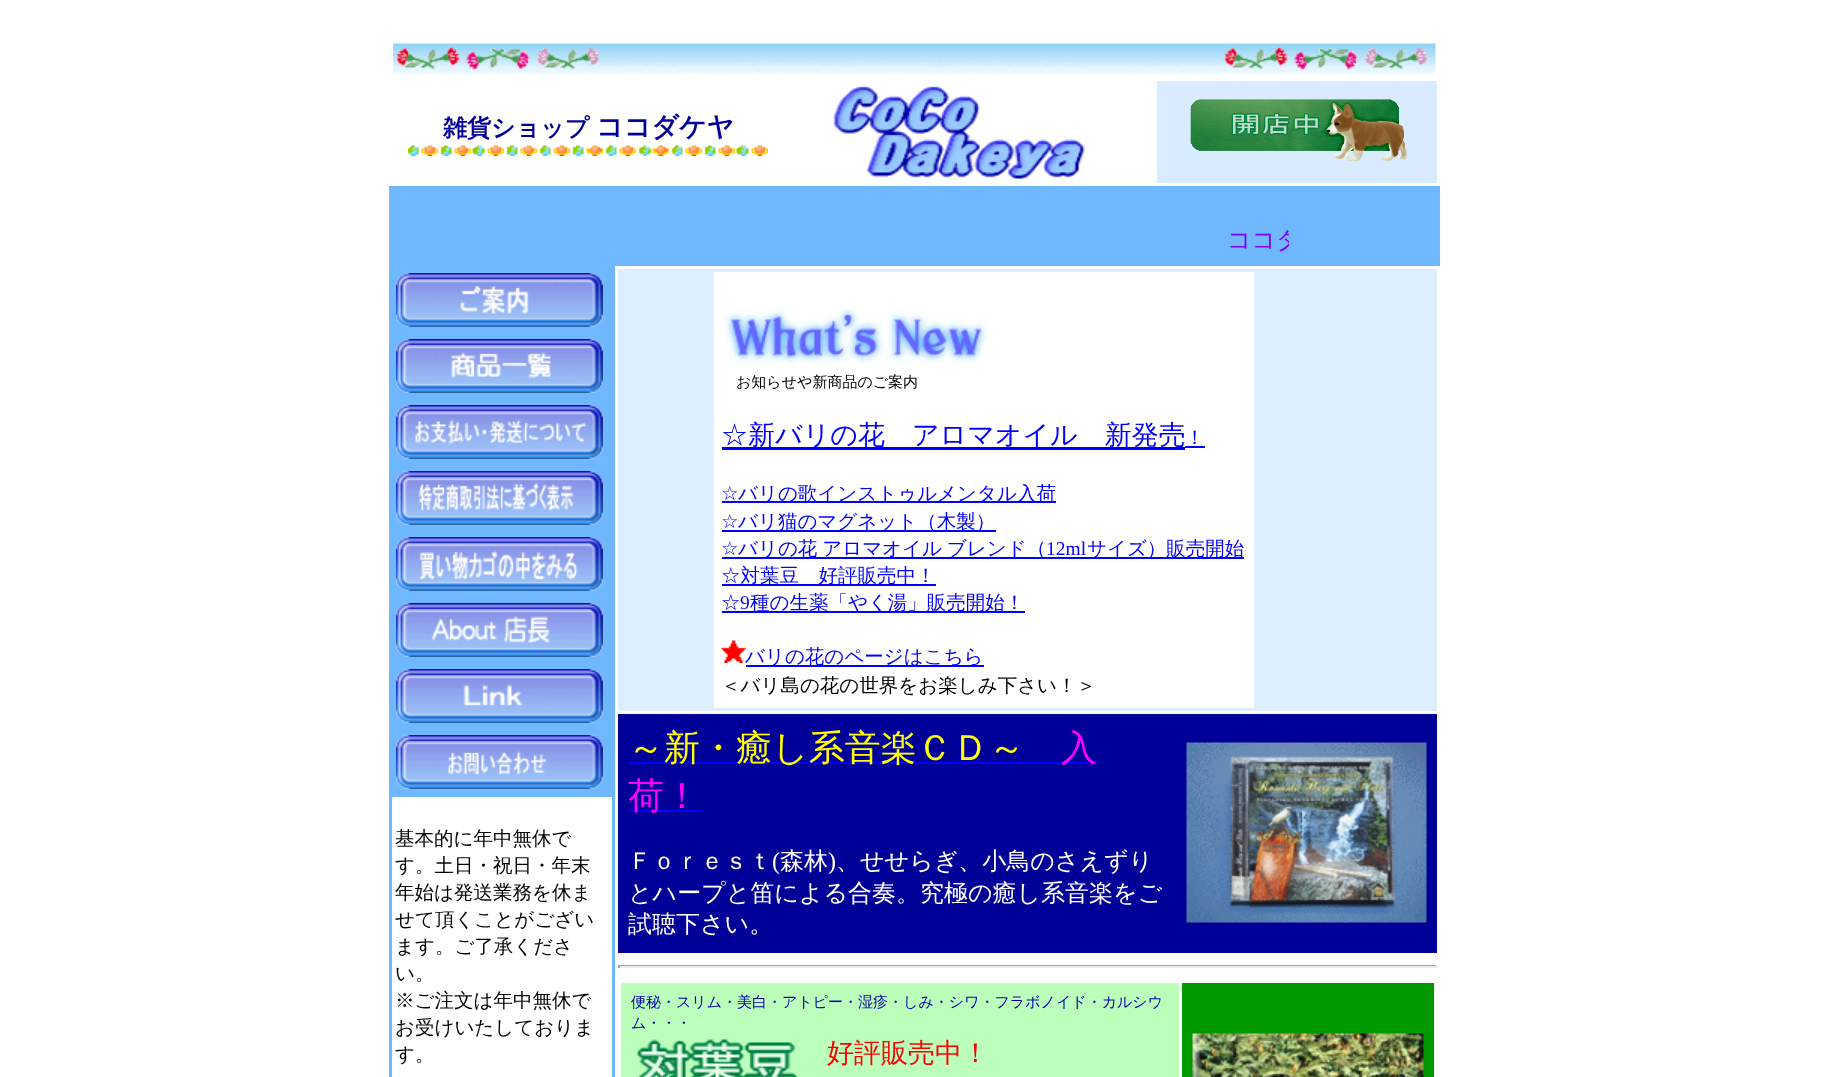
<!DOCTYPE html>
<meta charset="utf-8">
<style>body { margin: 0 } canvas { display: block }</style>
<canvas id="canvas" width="1826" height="1077"></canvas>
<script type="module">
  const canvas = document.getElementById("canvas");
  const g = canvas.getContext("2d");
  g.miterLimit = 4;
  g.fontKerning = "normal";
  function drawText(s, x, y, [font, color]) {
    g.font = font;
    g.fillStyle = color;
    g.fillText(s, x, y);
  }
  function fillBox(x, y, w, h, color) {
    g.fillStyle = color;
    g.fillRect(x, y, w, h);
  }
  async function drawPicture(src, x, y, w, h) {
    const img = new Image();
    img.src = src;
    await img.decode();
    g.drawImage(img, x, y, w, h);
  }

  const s1 = ["bold 24px WenQuanYi Zen Hei", "#000099"];
  const s2 = ["bold 27px WenQuanYi Zen Hei", "#000099"];
  const s3 = ["500 24px WenQuanYi Zen Hei", "#8000FF"];
  const s4 = ["500 19.5px WenQuanYi Zen Hei", "#000000"];
  const s5 = ["500 15px WenQuanYi Zen Hei", "#000000"];
  const s6 = ["500 27px WenQuanYi Zen Hei", "#0000FF"];
  const s7 = ["500 19.5px WenQuanYi Zen Hei", "#0000FF"];
  const s8 = ["19.5px DejaVu Sans", "#0000FF"];
  const s9 = ["19.5px Liberation Serif", "#0000FF"];
  const s10 = ["500 36px WenQuanYi Zen Hei", "#FFFF00"];
  const s11 = ["500 36px WenQuanYi Zen Hei", "#FF00FF"];
  const s12 = ["500 24px WenQuanYi Zen Hei", "#FFFFFF"];
  const s13 = ["24px Liberation Serif", "#FFFFFF"];
  const s14 = ["500 15px WenQuanYi Zen Hei", "#0000A0"];
  const s15 = ["500 27px WenQuanYi Zen Hei", "#FF0000"];

  fillBox(0, 0, 1826, 1077, "#FFFFFF");
  await drawPicture("pic1.png", 393, 43, 1043, 34);
  drawText("雑貨ショップ", 443, 136, s1);
  drawText("ココダケヤ", 596, 136, s2);
  await drawPicture("pic2.png", 408, 145, 360, 11);
  await drawPicture("pic3.png", 833, 86, 252, 93);
  fillBox(1157, 81, 280, 102, "#D9ECFF");
  await drawPicture("pic4.png", 1190, 99, 217, 62);
  fillBox(389, 186, 1051, 80, "#6FB7FF");
  g.save();
  g.beginPath();
  g.rect(539, 227, 750, 31);
  g.clip();
  drawText("ココダ", 1227, 248, s3);
  g.restore();
  fillBox(389, 266, 226, 811, "#6FB7FF");
  await drawPicture("pic5.png", 396, 273, 207, 54);
  await drawPicture("pic6.png", 396, 339, 207, 54);
  await drawPicture("pic7.png", 396, 405, 207, 54);
  await drawPicture("pic8.png", 396, 471, 207, 54);
  await drawPicture("pic9.png", 396, 537, 207, 54);
  await drawPicture("pic10.png", 396, 603, 207, 54);
  await drawPicture("pic11.png", 396, 669, 207, 54);
  await drawPicture("pic12.png", 396, 735, 207, 54);
  fillBox(392, 797, 220, 280, "#FFFFFF");
  drawText("基本的に年中無休で", 395, 845, s4);
  drawText("す。土日・祝日・年末", 395, 872, s4);
  drawText("年始は発送業務を休ま", 395, 899, s4);
  drawText("せて頂くことがござい", 395, 926, s4);
  drawText("ます。ご了承くださ", 395, 953, s4);
  drawText("い。", 395, 980, s4);
  drawText("※ご注文は年中無休で", 395, 1007, s4);
  drawText("お受けいたしておりま", 395, 1034, s4);
  drawText("す。", 395, 1061, s4);
  fillBox(618, 269, 819, 442, "#DDEEFF");
  fillBox(714, 272, 540, 436, "#FFFFFF");
  await drawPicture("pic13.png", 723, 306, 265, 60);
  drawText("お知らせや新商品のご案内", 736, 387, s5);
  fillBox(722, 447, 463, 3, "#0000FF");
  drawText("☆新バリの花　アロマオイル　新発売", 721, 444, s6);
  drawText("！", 1185, 444, s7);
  fillBox(1185, 446, 20, 2, "#0000FF");
  drawText("☆", 721, 500, s8);
  fillBox(722, 501, 334, 2, "#0000FF");
  drawText("バリの歌インストゥルメンタル入荷", 738, 500, s7);
  drawText("☆", 721, 528, s8);
  fillBox(722, 530, 274, 2, "#0000FF");
  drawText("バリ猫のマグネット（木製）", 738, 528, s7);
  drawText("☆", 721, 555, s8);
  fillBox(722, 557, 522, 2, "#0000FF");
  g.wordSpacing = "-1px";
  drawText("バリの花 アロマオイル ブレンド（", 738, 555, s7);
  g.wordSpacing = "0px";
  drawText("12ml", 1046, 555, s9);
  drawText("サイズ）販売開始", 1087, 555, s7);
  fillBox(722, 584, 214, 2, "#0000FF");
  drawText("☆対葉豆　好評販売中！", 721, 582, s7);
  drawText("☆", 721, 609, s7);
  drawText("9", 740, 609, s9);
  fillBox(722, 611, 303, 2, "#0000FF");
  drawText("種の生薬「やく湯」販売開始！", 750, 609, s7);
  await drawPicture("pic14.png", 721, 640, 25, 23);
  fillBox(746, 665, 238, 2, "#0000FF");
  drawText("バリの花のページはこちら", 745, 663, s7);
  drawText("＜バリ島の花の世界をお楽しみ下さい！＞", 721, 692, s4);
  fillBox(618, 714, 819, 239, "#000099");
  fillBox(629, 762, 468, 2, "#0000FF");
  drawText("～新・癒し系音楽ＣＤ～", 628, 760, s10);
  drawText("入", 1061, 760, s11);
  fillBox(629, 810, 72, 2, "#0000FF");
  drawText("荷！", 628, 808, s11);
  drawText("Ｆｏｒｅｓｔ", 628, 869, s12);
  drawText("(", 772, 869, s13);
  drawText("森林", 780, 869, s12);
  drawText(")", 828, 869, s13);
  drawText("、せせらぎ、小鳥のさえずり", 836, 869, s12);
  drawText("とハープと笛による合奏。究極の癒し系音楽をご", 628, 901, s12);
  drawText("試聴下さい。", 628, 932, s12);
  await drawPicture("pic15.png", 1186, 742, 241, 181);
  fillBox(618, 965, 819, 1, "#9F9F9F");
  fillBox(1436, 965, 2, 3, "#EEEEEE");
  fillBox(618, 966, 819, 2, "#EEEEEE");
  fillBox(618, 965, 2, 3, "#9F9F9F");
  fillBox(621, 983, 558, 94, "#BBFFBB");
  drawText("便秘・スリム・美白・アトピー・湿疹・しみ・シワ・フラボノイド・カルシウ", 631, 1007, s14);
  drawText("ム・・・", 631, 1028, s14);
  await drawPicture("pic16.png", 637, 1039, 162, 38);
  drawText("好評販売中！", 827, 1062, s15);
  fillBox(1182, 983, 252, 94, "#009900");
  await drawPicture("pic17.png", 1192, 1033, 232, 44);
</script>
